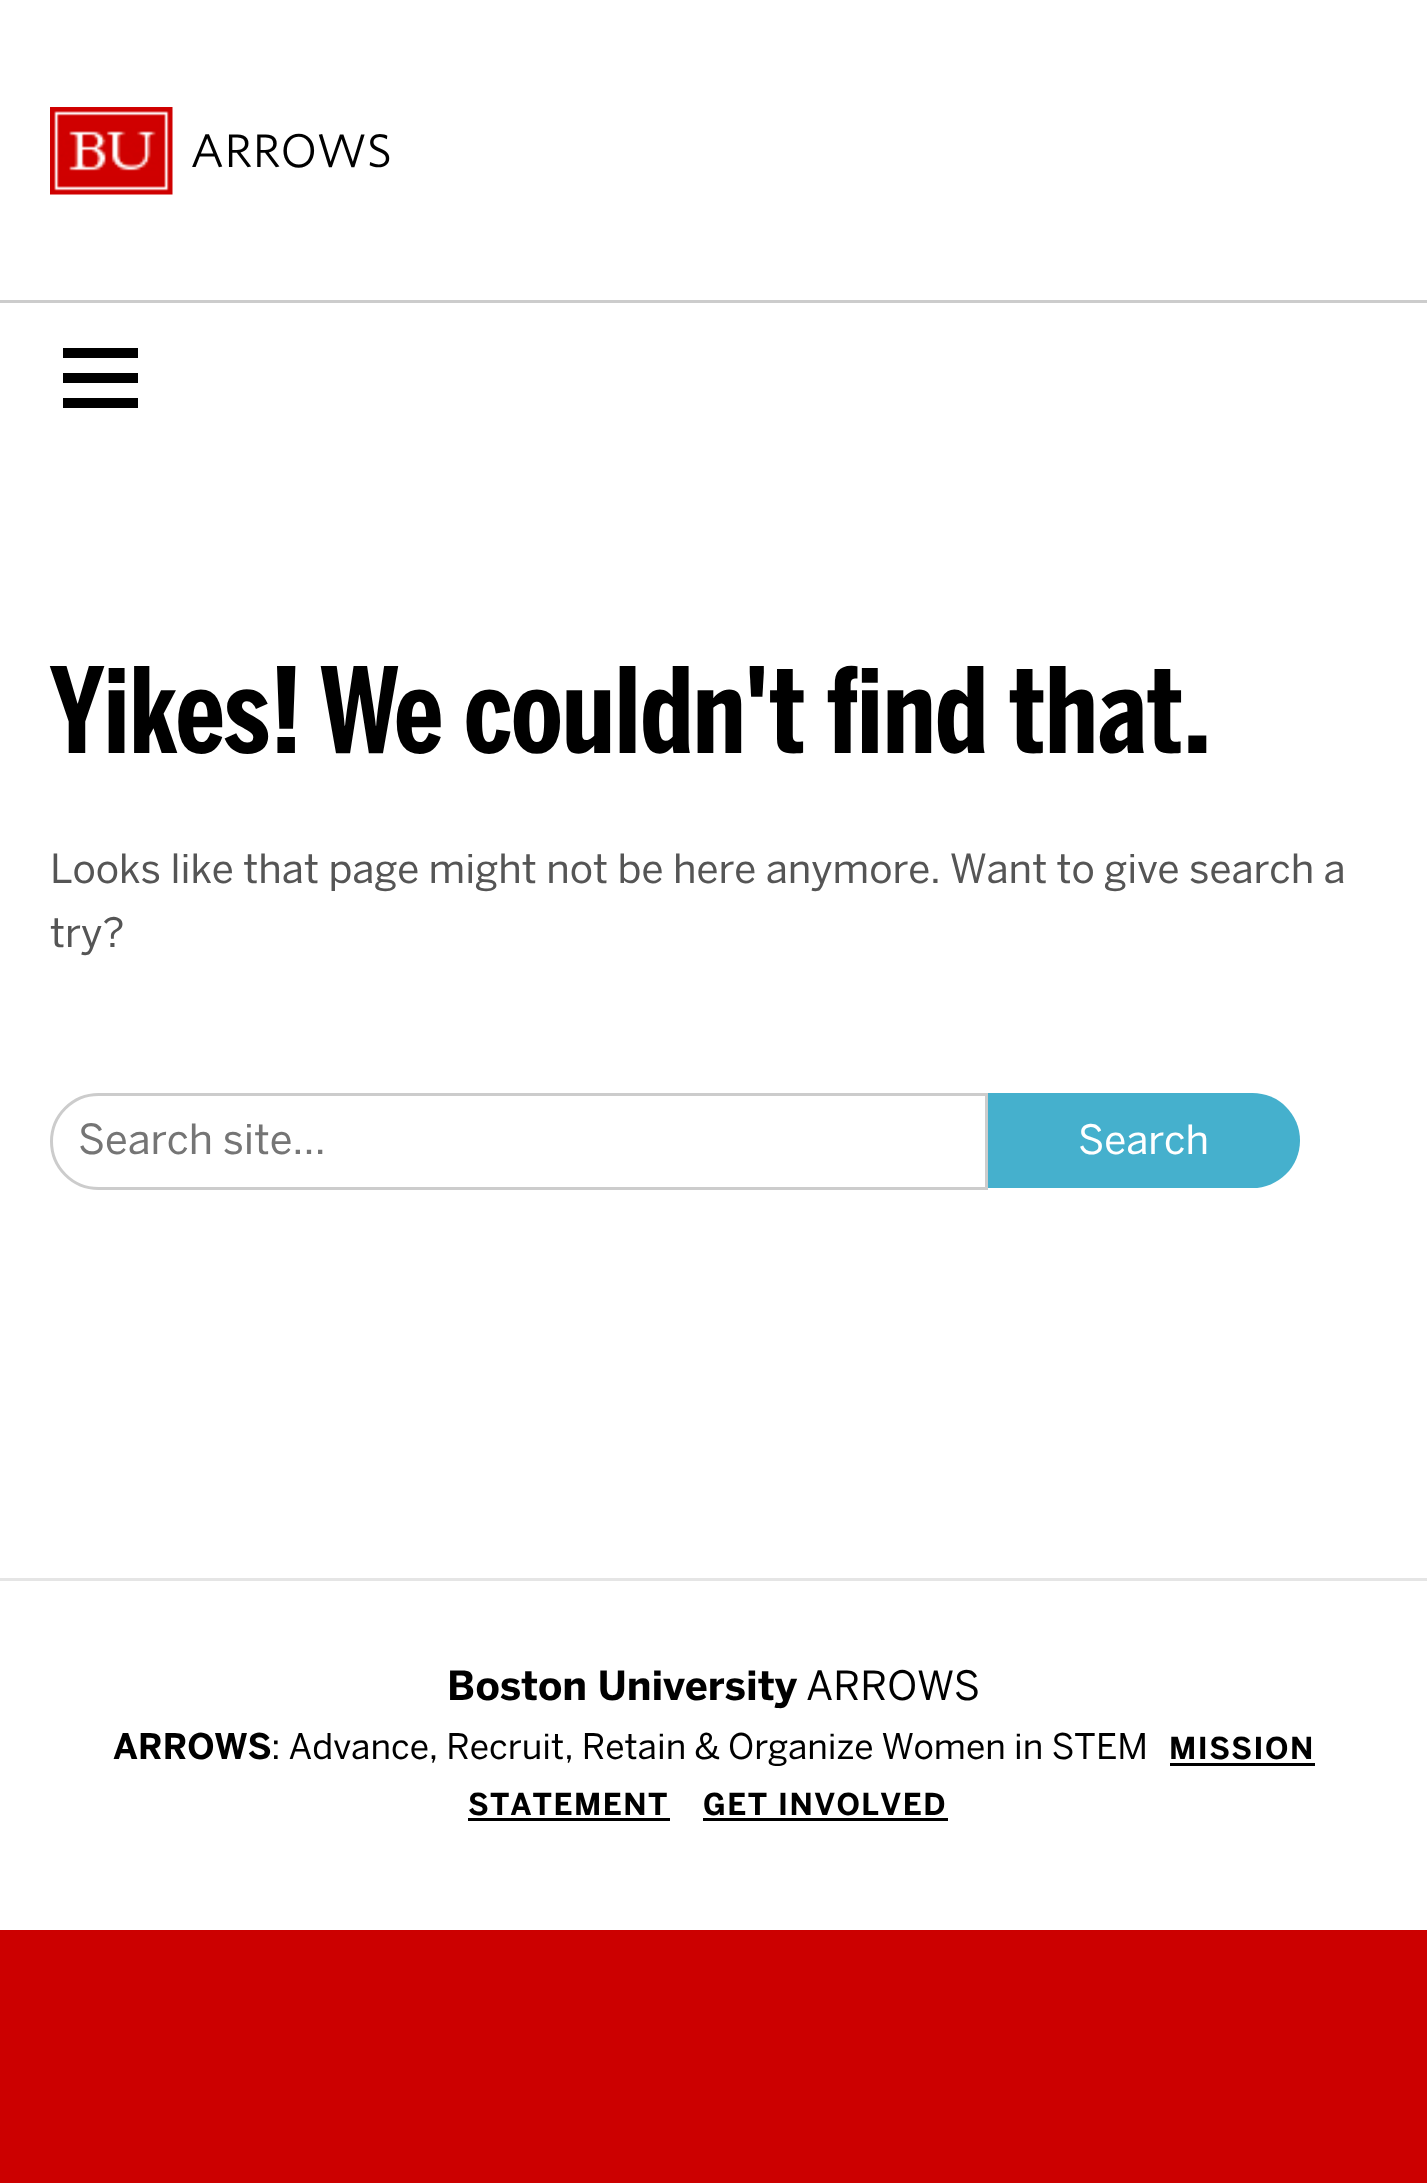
<!DOCTYPE html>
<meta charset="utf-8">
<style>body { margin: 0 } canvas { display: block }</style>
<canvas id="canvas" width="1427" height="2183"></canvas>
<script type="module">
  const canvas = document.getElementById("canvas");
  const g = canvas.getContext("2d");
  g.miterLimit = 4;
  g.fontKerning = "normal";
  function drawText(s, x, y, [font, color]) {
    g.font = font;
    g.fillStyle = color;
    g.fillText(s, x, y);
  }
  function fillBox(x, y, w, h, color) {
    g.fillStyle = color;
    g.fillRect(x, y, w, h);
  }
  async function drawPicture(src, x, y, w, h) {
    const img = new Image();
    img.src = src;
    await img.decode();
    g.drawImage(img, x, y, w, h);
  }

  const s1 = ["45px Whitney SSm", "#000000"];
  const s2 = ["bold 117.5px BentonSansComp", "#000000"];
  const s3 = ["40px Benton", "#555555"];
  const s4 = ["41.25px Benton", "#757575"];
  const s5 = ["40px Benton", "#FFFFFF"];
  const s6 = ["bold 40px Benton", "#000000"];
  const s7 = ["40px Benton", "#000000"];
  const s8 = ["bold 35px Benton", "#000000"];
  const s9 = ["35px Benton", "#000000"];
  const s10 = ["bold 30px Benton", "#000000"];

  fillBox(0, 0, 1427, 2183, "#FFFFFF");
  await drawPicture("pic1.png", 50, 107, 123, 88);
  drawText("ARROWS", 190, 167, s1);
  fillBox(0, 300, 1427, 3, "#CCCCCC");
  fillBox(63, 373, 75, 10, "#000000");
  fillBox(63, 348, 75, 10, "#000000");
  fillBox(63, 398, 75, 10, "#000000");
  drawText("Yikes! We couldn't find that.", 50, 753, s2);
  drawText("Looks like that page might not be here anymore. Want to give search a", 50, 883, s3);
  drawText("try?", 50, 947, s3);
  g.beginPath();
  g.roundRect(51.5, 1094.5, 935, 94, [47, 0, 0, 47]);
  g.strokeStyle = "#CCCCCC";
  g.lineWidth = 3;
  g.stroke();
  drawText("Search site…", 78, 1154, s4);
  g.fillStyle = "#45B0CD";
  g.beginPath();
  g.roundRect(988, 1093, 312, 95, [0, 47.5, 47.5, 0]);
  g.fill();
  drawText("Search", 1078, 1154, s5);
  fillBox(0, 1578, 1427, 3, "#E5E5E5");
  drawText("Boston University", 447, 1700, s6);
  drawText("ARROWS", 806, 1700, s7);
  drawText("ARROWS", 113, 1759, s8);
  drawText(": Advance, Recruit, Retain & Organize Women in STEM", 271, 1759, s9);
  g.letterSpacing = "1.5px";
  drawText("MISSION", 1169, 1759, s10);
  fillBox(1170, 1763, 145, 3, "#000000");
  drawText("STATEMENT", 468, 1815, s10);
  fillBox(468, 1818, 202, 3, "#000000");
  drawText("GET INVOLVED", 703, 1815, s10);
  fillBox(703, 1818, 245, 3, "#000000");
  fillBox(0, 1930, 1427, 253, "#CC0000");
</script>
